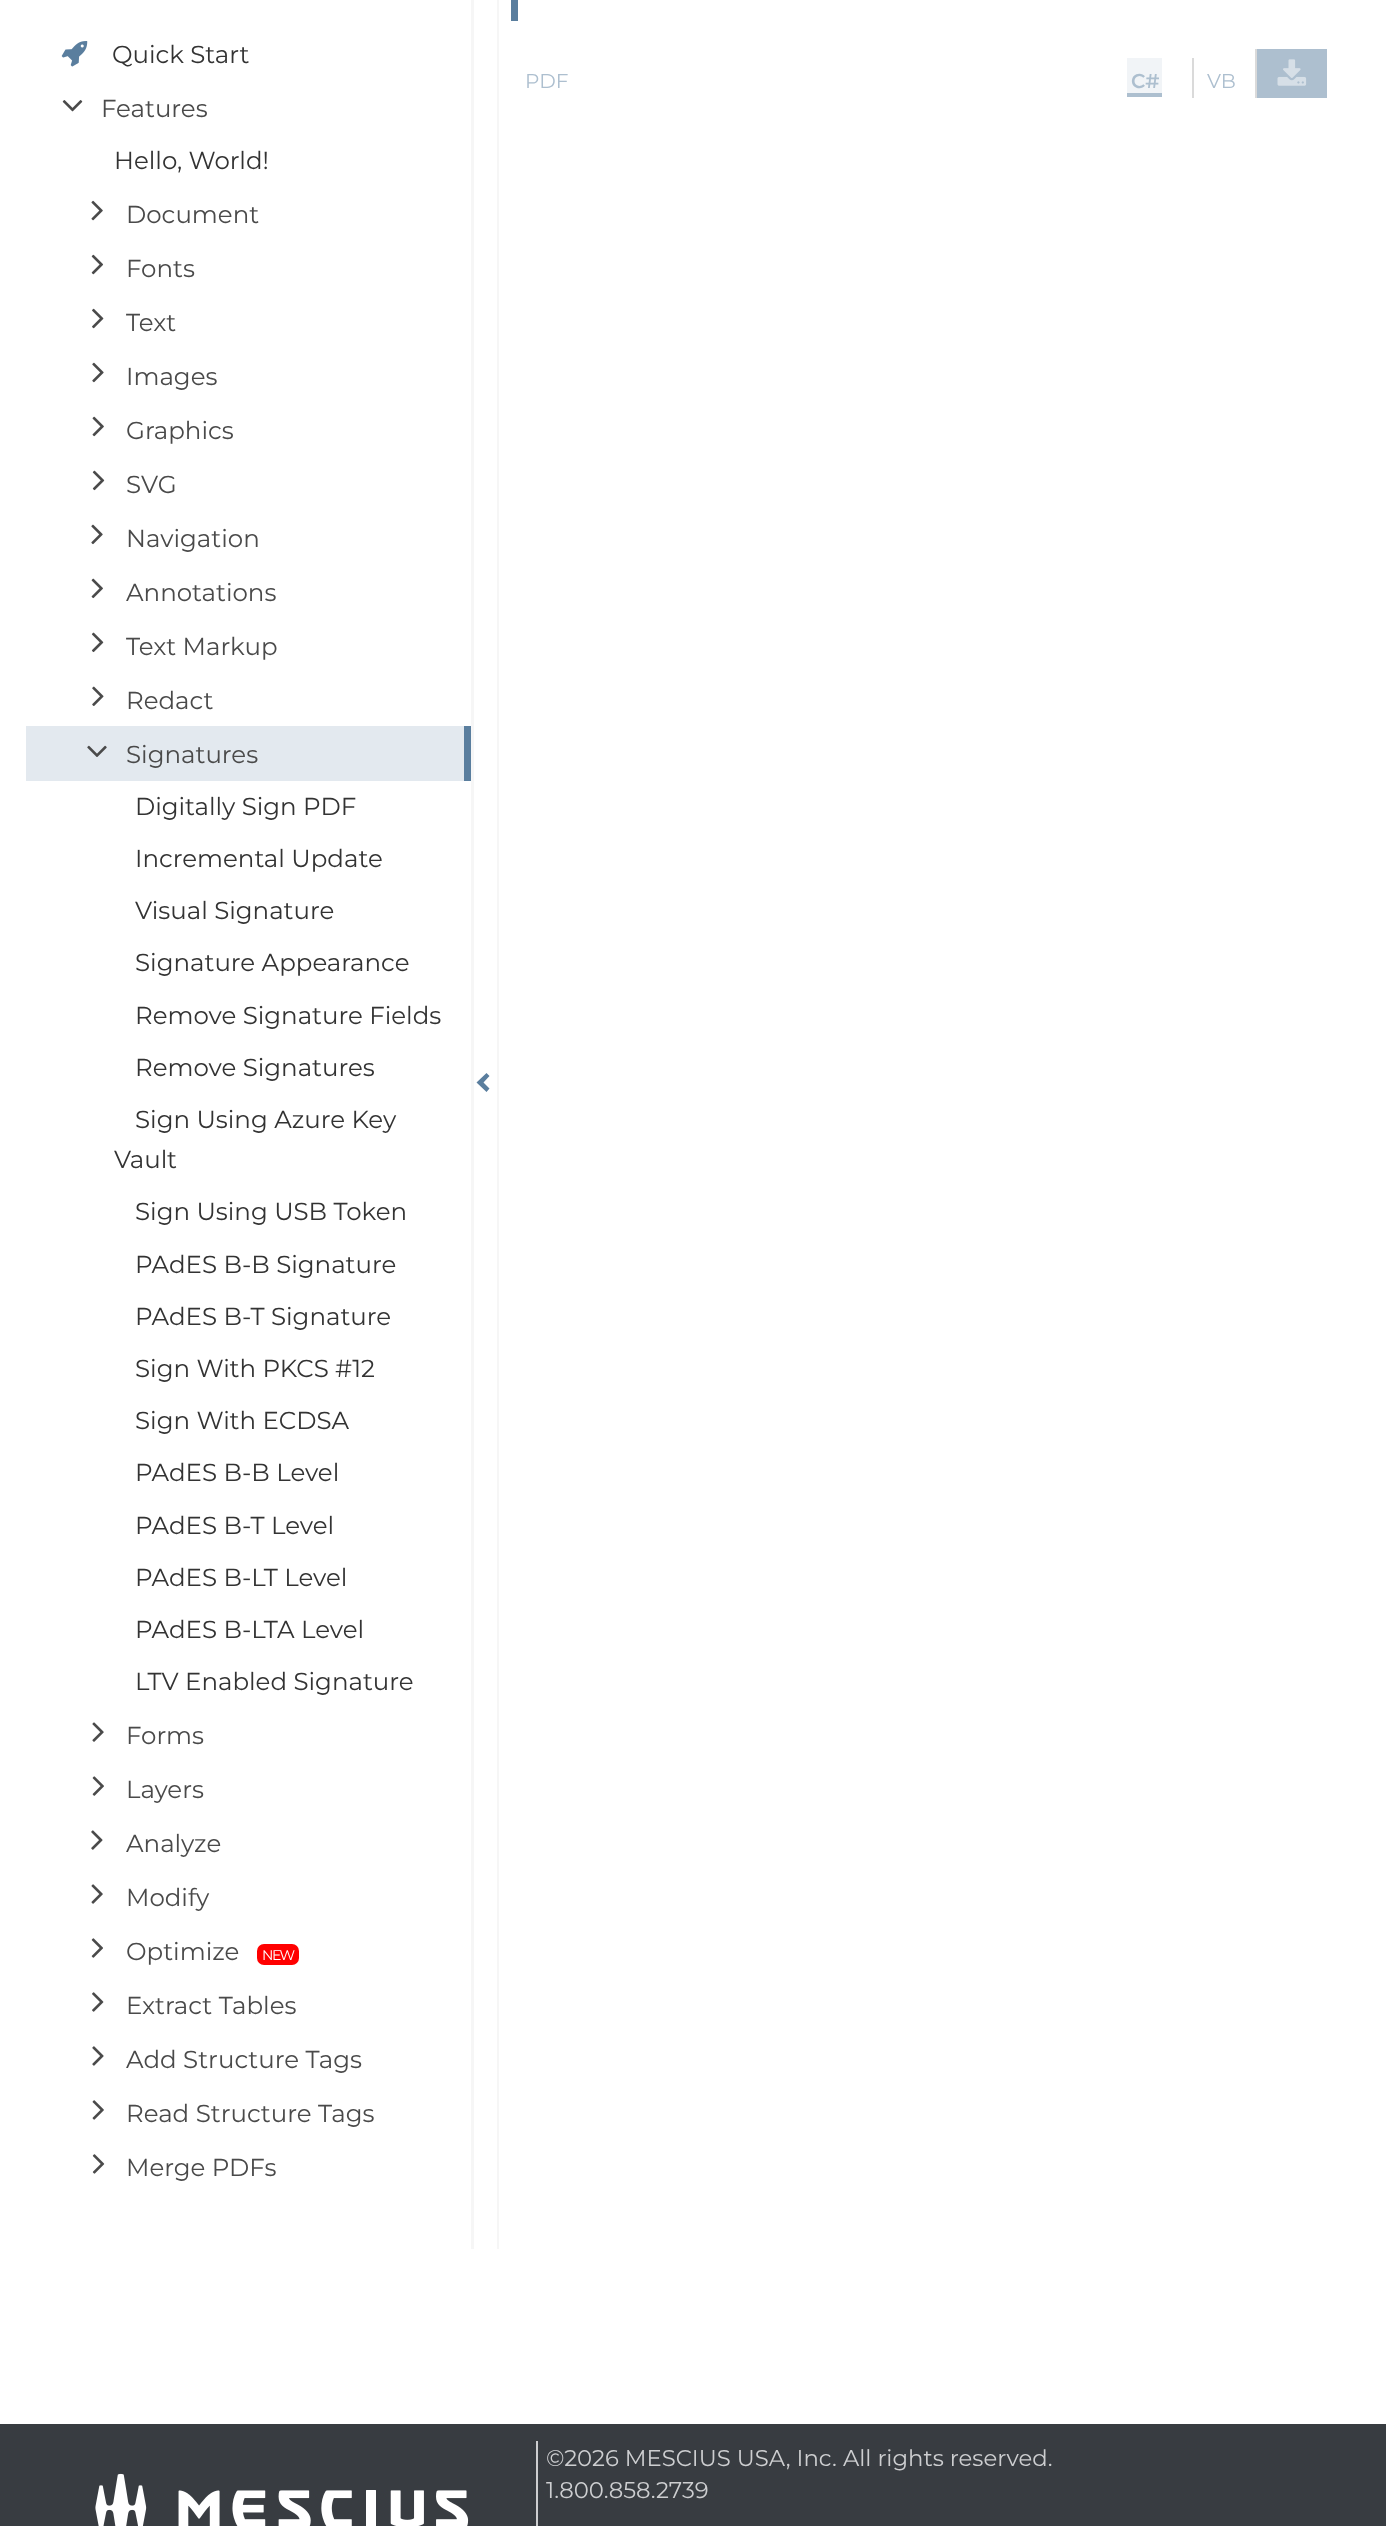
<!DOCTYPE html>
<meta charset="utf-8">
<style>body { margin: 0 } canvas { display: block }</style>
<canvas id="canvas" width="1386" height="2526"></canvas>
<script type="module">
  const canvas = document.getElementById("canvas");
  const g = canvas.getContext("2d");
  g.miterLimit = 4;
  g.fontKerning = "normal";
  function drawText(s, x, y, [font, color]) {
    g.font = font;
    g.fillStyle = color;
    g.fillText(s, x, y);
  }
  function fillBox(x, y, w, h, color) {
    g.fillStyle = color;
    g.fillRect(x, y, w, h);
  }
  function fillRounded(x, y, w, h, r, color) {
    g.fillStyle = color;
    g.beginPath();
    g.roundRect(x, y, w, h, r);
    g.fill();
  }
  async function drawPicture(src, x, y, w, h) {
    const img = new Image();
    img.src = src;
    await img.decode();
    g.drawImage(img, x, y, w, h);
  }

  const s1 = ["24.5px Montserrat", "#333333"];
  const s2 = ["24.5px Montserrat", "#4A4A4A"];
  const s3 = ["14px Montserrat", "#FFFFFF"];
  const s4 = ["20px Montserrat", "#ADBFCF"];
  const s5 = ["600 20px Montserrat", "#ADBFCF"];
  const s6 = ["22.75px Montserrat", "#CDCED0"];

  fillBox(0, 0, 1386, 2526, "#FFFFFF");
  await drawPicture("pic1.png", 61, 41, 27, 26);
  drawText("Quick Start", 112, 63, s1);
  await drawPicture("pic2.png", 62, 100, 21, 12);
  drawText("Features", 101, 117, s2);
  drawText("Hello, World!", 114, 169, s1);
  await drawPicture("pic3.png", 91, 200, 12, 21);
  drawText("Document", 126, 223, s2);
  await drawPicture("pic4.png", 91, 254, 13, 21);
  drawText("Fonts", 126, 277, s2);
  await drawPicture("pic5.png", 92, 308, 12, 21);
  drawText("Text", 126, 331, s2);
  await drawPicture("pic6.png", 92, 362, 12, 21);
  drawText("Images", 126, 385, s2);
  await drawPicture("pic7.png", 92, 416, 12, 21);
  drawText("Graphics", 126, 439, s2);
  await drawPicture("pic8.png", 92, 470, 13, 21);
  drawText("SVG", 126, 493, s2);
  await drawPicture("pic9.png", 91, 524, 12, 21);
  drawText("Navigation", 126, 547, s2);
  await drawPicture("pic10.png", 91, 578, 12, 21);
  drawText("Annotations", 126, 601, s2);
  await drawPicture("pic11.png", 91, 632, 13, 21);
  drawText("Text Markup", 126, 655, s2);
  await drawPicture("pic12.png", 92, 686, 12, 20);
  drawText("Redact", 126, 709, s2);
  fillBox(26, 726, 438, 55, "#E3E9EF");
  fillBox(464, 726, 7, 55, "#5A7E9E");
  await drawPicture("pic13.png", 87, 745, 20, 12);
  drawText("Signatures", 126, 763, s2);
  drawText("Digitally Sign PDF", 135, 815, s1);
  drawText("Incremental Update", 135, 867, s1);
  drawText("Visual Signature", 135, 919, s1);
  drawText("Signature Appearance", 135, 971, s1);
  drawText("Remove Signature Fields", 135, 1024, s1);
  drawText("Remove Signatures", 135, 1076, s1);
  drawText("Sign Using Azure Key", 135, 1128, s1);
  drawText("Vault", 114, 1168, s1);
  drawText("Sign Using USB Token", 135, 1220, s1);
  drawText("PAdES B-B Signature", 135, 1273, s1);
  drawText("PAdES B-T Signature", 135, 1325, s1);
  drawText("Sign With PKCS #12", 135, 1377, s1);
  drawText("Sign With ECDSA", 135, 1429, s1);
  drawText("PAdES B-B Level", 135, 1481, s1);
  drawText("PAdES B-T Level", 135, 1534, s1);
  drawText("PAdES B-LT Level", 135, 1586, s1);
  drawText("PAdES B-LTA Level", 135, 1638, s1);
  drawText("LTV Enabled Signature", 135, 1690, s1);
  await drawPicture("pic14.png", 92, 1722, 12, 20);
  drawText("Forms", 126, 1744, s2);
  await drawPicture("pic15.png", 92, 1776, 12, 20);
  drawText("Layers", 126, 1798, s2);
  await drawPicture("pic16.png", 91, 1830, 12, 20);
  drawText("Analyze", 126, 1852, s2);
  await drawPicture("pic17.png", 91, 1884, 12, 20);
  drawText("Modify", 126, 1906, s2);
  await drawPicture("pic18.png", 91, 1938, 12, 20);
  drawText("Optimize", 126, 1960, s2);
  fillRounded(257, 1944, 42, 21, 7, "#FF0000");
  g.letterSpacing = "-1.5px";
  drawText("NEW", 262, 1960, s3);
  await drawPicture("pic19.png", 92, 1992, 12, 20);
  g.letterSpacing = "0px";
  drawText("Extract Tables", 126, 2014, s2);
  await drawPicture("pic20.png", 92, 2046, 12, 20);
  drawText("Add Structure Tags", 126, 2068, s2);
  await drawPicture("pic21.png", 92, 2100, 12, 20);
  drawText("Read Structure Tags", 126, 2122, s2);
  await drawPicture("pic22.png", 92, 2154, 13, 20);
  drawText("Merge PDFs", 126, 2176, s2);
  fillBox(471, 0, 3, 2249, "#F6F6F6");
  fillBox(497, 0, 2, 2249, "#F6F6F6");
  g.fillStyle = "#5A7E9E";
  g.beginPath();
  g.moveTo(489.5, 1076);
  g.lineTo(483.5, 1082.5);
  g.lineTo(489.5, 1088.5);
  g.lineTo(486.5, 1092);
  g.lineTo(476.5, 1082.5);
  g.lineTo(486.5, 1073);
  g.closePath();
  g.fill();
  fillBox(511, 0, 7, 21, "#5A7E9E");
  drawText("PDF", 525, 88, s4);
  fillBox(1127, 58, 35, 35, "#F1F4F7");
  fillBox(1127, 93, 35, 4, "#ADBFCF");
  drawText("C#", 1131, 88, s5);
  fillBox(1192, 58, 2, 40, "#DADADA");
  drawText("VB", 1207, 88, s4);
  fillBox(1257, 49, 70, 49, "#ADBFCF");
  fillBox(1255, 49, 2, 49, "#DADADA");
  await drawPicture("pic23.png", 1277, 59, 30, 27);
  fillBox(0, 2424, 1386, 102, "#383C41");
  fillBox(536, 2441, 2, 85, "#CDCED0");
  await drawPicture("pic24.png", 95, 2473, 374, 53);
  drawText("©2026 MESCIUS USA, Inc. All rights reserved.", 546, 2466, s6);
  drawText("1.800.858.2739", 546, 2498, s6);
</script>
